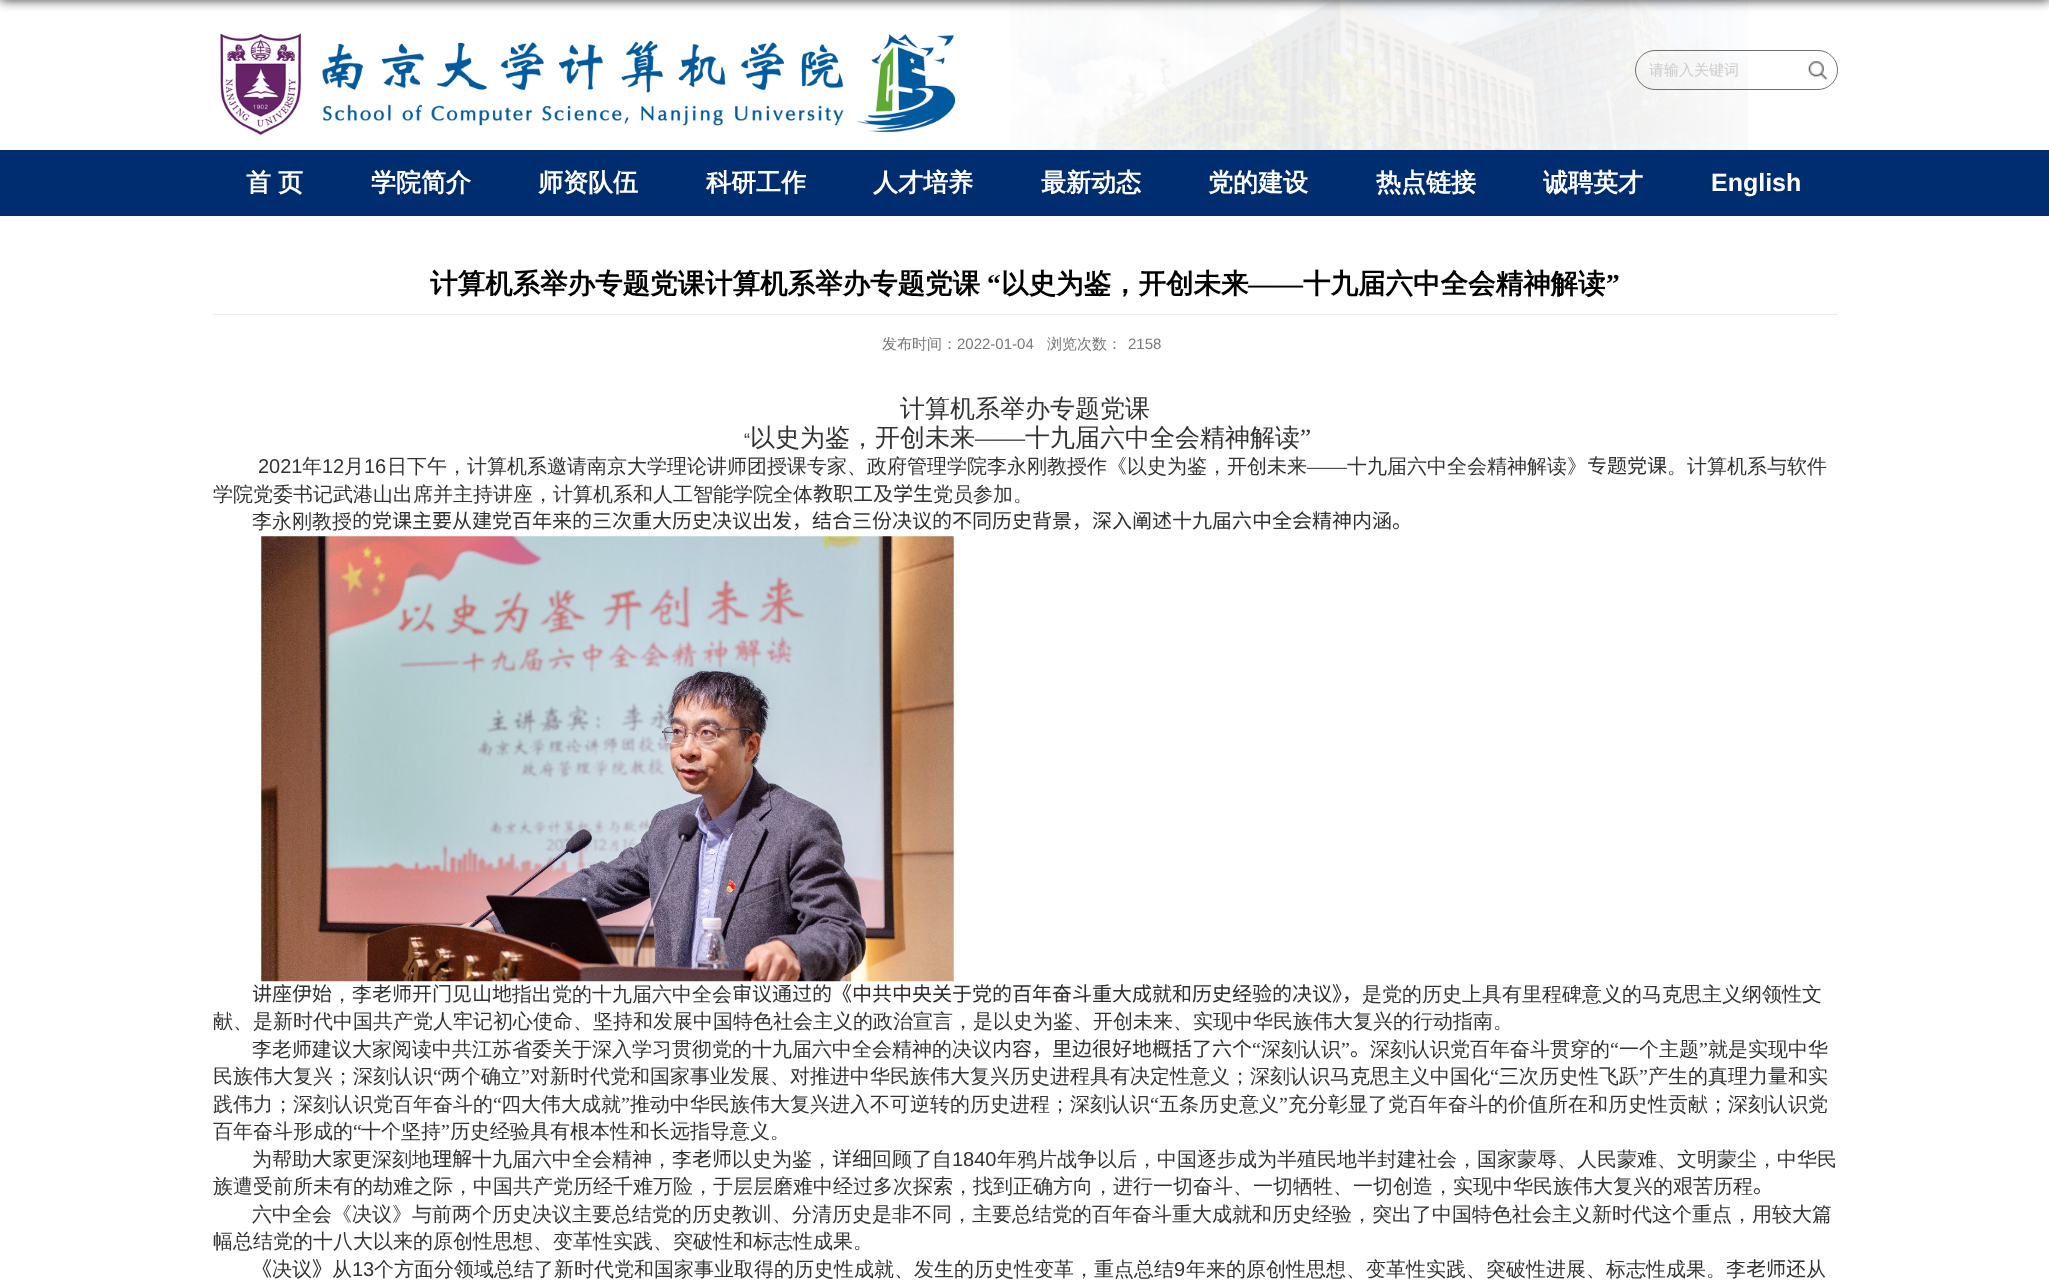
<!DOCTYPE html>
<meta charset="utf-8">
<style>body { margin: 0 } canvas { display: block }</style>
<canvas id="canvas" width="2049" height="1286"></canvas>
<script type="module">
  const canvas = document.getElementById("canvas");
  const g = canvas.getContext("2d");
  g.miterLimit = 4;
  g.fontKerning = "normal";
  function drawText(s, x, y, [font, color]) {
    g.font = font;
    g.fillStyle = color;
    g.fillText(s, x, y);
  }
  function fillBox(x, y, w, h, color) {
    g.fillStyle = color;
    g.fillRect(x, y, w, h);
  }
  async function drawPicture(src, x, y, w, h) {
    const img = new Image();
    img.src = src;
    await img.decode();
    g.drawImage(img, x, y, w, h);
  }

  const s1 = ["500 15px WenQuanYi Zen Hei", "#CCCCCC"];
  const s2 = ["bold 25px WenQuanYi Zen Hei", "#FFFFFF"];
  const s3 = ["bold 25px Liberation Sans", "#FFFFFF"];
  const s4 = ["bold 27.5px WenQuanYi Zen Hei", "#000000"];
  const s5 = ["bold 27.5px Liberation Serif", "#000000"];
  const s6 = ["500 15px WenQuanYi Zen Hei", "#787878"];
  const s7 = ["15px Liberation Sans", "#787878"];
  const s8 = ["500 25px WenQuanYi Zen Hei", "#333333"];
  const s9 = ["18px Liberation Sans", "#333333"];
  const s10 = ["25px Liberation Serif", "#333333"];
  const s11 = ["20px Liberation Sans", "#333333"];
  const s12 = ["500 20px WenQuanYi Zen Hei", "#333333"];
  const s13 = ["20px Liberation Serif", "#333333"];
  const s14 = ["20px Noto Sans CJK SC", "#333333"];
  const s15 = ["20px Noto Sans CJK SC", "#302C30"];

  fillBox(0, 0, 2049, 1286, "#FFFFFF");
  await drawPicture("pic1.png", 1011, 0, 737, 150);
  g.fillStyle = "rgba(0, 0, 0, 0.8)";
  g.filter = "blur(6px)";
  g.beginPath();
  g.rect(0, -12, 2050, 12);
  g.fill();
  g.filter = "none";
  await drawPicture("pic2.png", 220, 33, 736, 102);
  g.beginPath();
  g.roundRect(1635.5, 50.5, 202, 39, 19.5);
  g.strokeStyle = "#707070";
  g.stroke();
  drawText("请输入关键词", 1649, 75, s1);
  await drawPicture("pic3.png", 1808, 61, 20, 19);
  fillBox(0, 150, 2049, 66, "#002D70");
  drawText("首", 246, 191, s2);
  drawText("页", 278, 191, s2);
  drawText("学院简介", 371, 191, s2);
  drawText("师资队伍", 538, 191, s2);
  drawText("科研工作", 706, 191, s2);
  drawText("人才培养", 873, 191, s2);
  drawText("最新动态", 1041, 191, s2);
  drawText("党的建设", 1208, 191, s2);
  drawText("热点链接", 1376, 191, s2);
  drawText("诚聘英才", 1543, 191, s2);
  drawText("English", 1711, 191, s3);
  drawText("计算机系举办专题党课计算机系举办专题党课", 430, 293, s4);
  drawText("“", 987, 293, s5);
  drawText("以史为鉴，开创未来", 1001, 293, s4);
  drawText("——", 1248, 293, s5);
  drawText("十九届六中全会精神解读", 1303, 293, s4);
  drawText("”", 1606, 293, s5);
  fillBox(213, 314, 1625, 1, "#ECECEC");
  drawText("发布时间：", 882, 349, s6);
  drawText("2022-01-04", 957, 349, s7);
  drawText("浏览次数：", 1047, 349, s6);
  drawText("2158", 1128, 349, s7);
  drawText("计算机系举办专题党课", 900, 417, s8);
  drawText("“", 744, 446, s9);
  drawText("以史为鉴，开创未来", 750, 446, s8);
  drawText("十九届六中全会精神解读", 1025, 446, s8);
  drawText("”", 1300, 446, s10);
  drawText("——", 975, 446, s10);
  drawText("2021", 258, 473, s11);
  drawText("年", 302, 473, s12);
  drawText("12", 322, 473, s11);
  drawText("月", 344, 473, s12);
  drawText("16", 364, 473, s11);
  drawText("日下午，计算机系邀请南京大学理论讲师团授课专家、政府管理学院李永刚教授作《以史为鉴，开创未来", 387, 473, s12);
  drawText("——", 1307, 473, s13);
  drawText("十九届六中全会精神解读》", 1347, 473, s12);
  drawText("专题党课", 1587, 473, s14);
  drawText("。计算机系与软件", 1667, 473, s12);
  drawText("学院党委书记武港山出席并主持讲座，计算机系和人工智能学院全体", 213, 501, s12);
  drawText("教职工及学生", 813, 501, s14);
  drawText("党员参加。", 933, 501, s12);
  drawText("李永刚教授", 252, 528, s12);
  drawText("的党课主要从建党百年来的三次重大历史决议出发，结合三份决议的不同历史背景，深入阐述十九届六中全会精神内涵。", 352, 528, s14);
  await drawPicture("pic4.png", 261, 536, 693, 446);
  drawText("讲座伊始", 252, 1001, s14);
  drawText("，李", 332, 1001, s12);
  drawText("老师开门见山地", 372, 1001, s14);
  drawText("指出党的十九届六中全会", 512, 1001, s12);
  drawText("审议通过的", 732, 1001, s14);
  drawText("《中共中央关于党的百年奋斗重大成就和历史经验的决议》，", 832, 1001, s15);
  drawText("是党的历史上具有里程碑意义的马克思主义纲领性文", 1362, 1001, s12);
  drawText("献、是新时代中国共产党人牢记初心使命、坚持和发展中国特色社会主义的政治宣言，是以史为鉴、开创未来、实现中华民族伟大复兴的行动指南。", 213, 1028, s12);
  drawText("李老师建议大家阅读中共江苏省委关于深入学习贯彻党的十九届六中全会精神的决议", 252, 1056, s12);
  drawText("内容，里边很好地概括了六个", 992, 1056, s14);
  drawText("“", 1252, 1056, s13);
  drawText("深刻认识", 1261, 1056, s12);
  drawText("”", 1341, 1056, s13);
  drawText("深刻认识党百年奋斗贯穿的", 1370, 1056, s12);
  drawText("“", 1610, 1056, s13);
  drawText("一个主题", 1619, 1056, s12);
  drawText("”", 1699, 1056, s13);
  drawText("就是实现中华", 1708, 1056, s12);
  drawText("。", 1350, 1056, s14);
  drawText("民族伟大复兴；深刻认识", 213, 1083, s12);
  drawText("“", 433, 1083, s13);
  drawText("两个确立", 441, 1083, s12);
  drawText("”", 521, 1083, s13);
  drawText("对新时代党和国家事业发展、对推进中华民族伟大复兴历史进程具有决定性意义；深刻认识马克思主义中国化", 530, 1083, s12);
  drawText("“", 1490, 1083, s13);
  drawText("三次历史性飞跃", 1499, 1083, s12);
  drawText("”", 1639, 1083, s13);
  drawText("产生的真理力量和实", 1648, 1083, s12);
  drawText("践伟力；深刻认识党百年奋斗的", 213, 1111, s12);
  drawText("“", 493, 1111, s13);
  drawText("四大伟大成就", 501, 1111, s12);
  drawText("”", 621, 1111, s13);
  drawText("推动中华民族伟大复兴进入不可逆转的历史进程；深刻认识", 630, 1111, s12);
  drawText("“", 1150, 1111, s13);
  drawText("五条历史意义", 1159, 1111, s12);
  drawText("”", 1279, 1111, s13);
  drawText("充分彰显了党百年奋斗的价值所在和历史性贡献；深刻认识党", 1288, 1111, s12);
  drawText("百年奋斗形成的", 213, 1138, s12);
  drawText("“", 353, 1138, s13);
  drawText("十个坚持", 361, 1138, s12);
  drawText("”", 441, 1138, s13);
  drawText("历史经验具有根本性和长远指导意义。", 450, 1138, s12);
  drawText("为帮助", 252, 1166, s12);
  drawText("大家", 312, 1166, s14);
  drawText("更深刻地", 352, 1166, s12);
  drawText("理解", 432, 1166, s14);
  drawText("十九届六中全会精神，李", 472, 1166, s12);
  drawText("老师", 692, 1166, s14);
  drawText("以史为鉴，", 732, 1166, s12);
  drawText("详细", 832, 1166, s14);
  drawText("回顾", 872, 1166, s12);
  drawText("了", 912, 1166, s14);
  drawText("自", 932, 1166, s12);
  drawText("1840", 952, 1166, s11);
  drawText("年鸦片战争以后，中国逐步成为半殖民地半封建社会，国家蒙辱、人民蒙难、文明蒙尘，中华民", 997, 1166, s12);
  drawText("族遭受前所未有的劫难之际，中国共产党历经千难万险，于层层磨难中经过多次探索，找到正确方向，进行一切奋斗、一切牺牲、一切创造，实现中华民族伟大复兴的艰苦历程", 213, 1193, s12);
  drawText("。", 1753, 1193, s14);
  drawText("六中全会《决议》与前两个历史决议主要总结党的历史教训、分清历史是非不同，主要总结党的百年奋斗重大成就和历史经验，突出了中国特色社会主义新时代这个重点，用较大篇", 252, 1221, s12);
  drawText("幅总结党的十八大以来的原创性思想、变革性实践、突破性和标志性成果。", 213, 1248, s12);
  drawText("《", 252, 1276, s14);
  drawText("决议", 272, 1276, s12);
  drawText("》", 312, 1276, s14);
  drawText("从", 332, 1276, s12);
  drawText("13", 352, 1276, s11);
  drawText("个方面分领域总结了新时代党和国家事业取得的历史性成就、发生的历史性变革，重点总结", 374, 1276, s12);
  drawText("9", 1174, 1276, s11);
  drawText("年来的原创性思想、变革性实践、突破性进展、标志性成果。李", 1186, 1276, s12);
  drawText("老师还", 1746, 1276, s14);
  drawText("从", 1806, 1276, s12);
</script>
